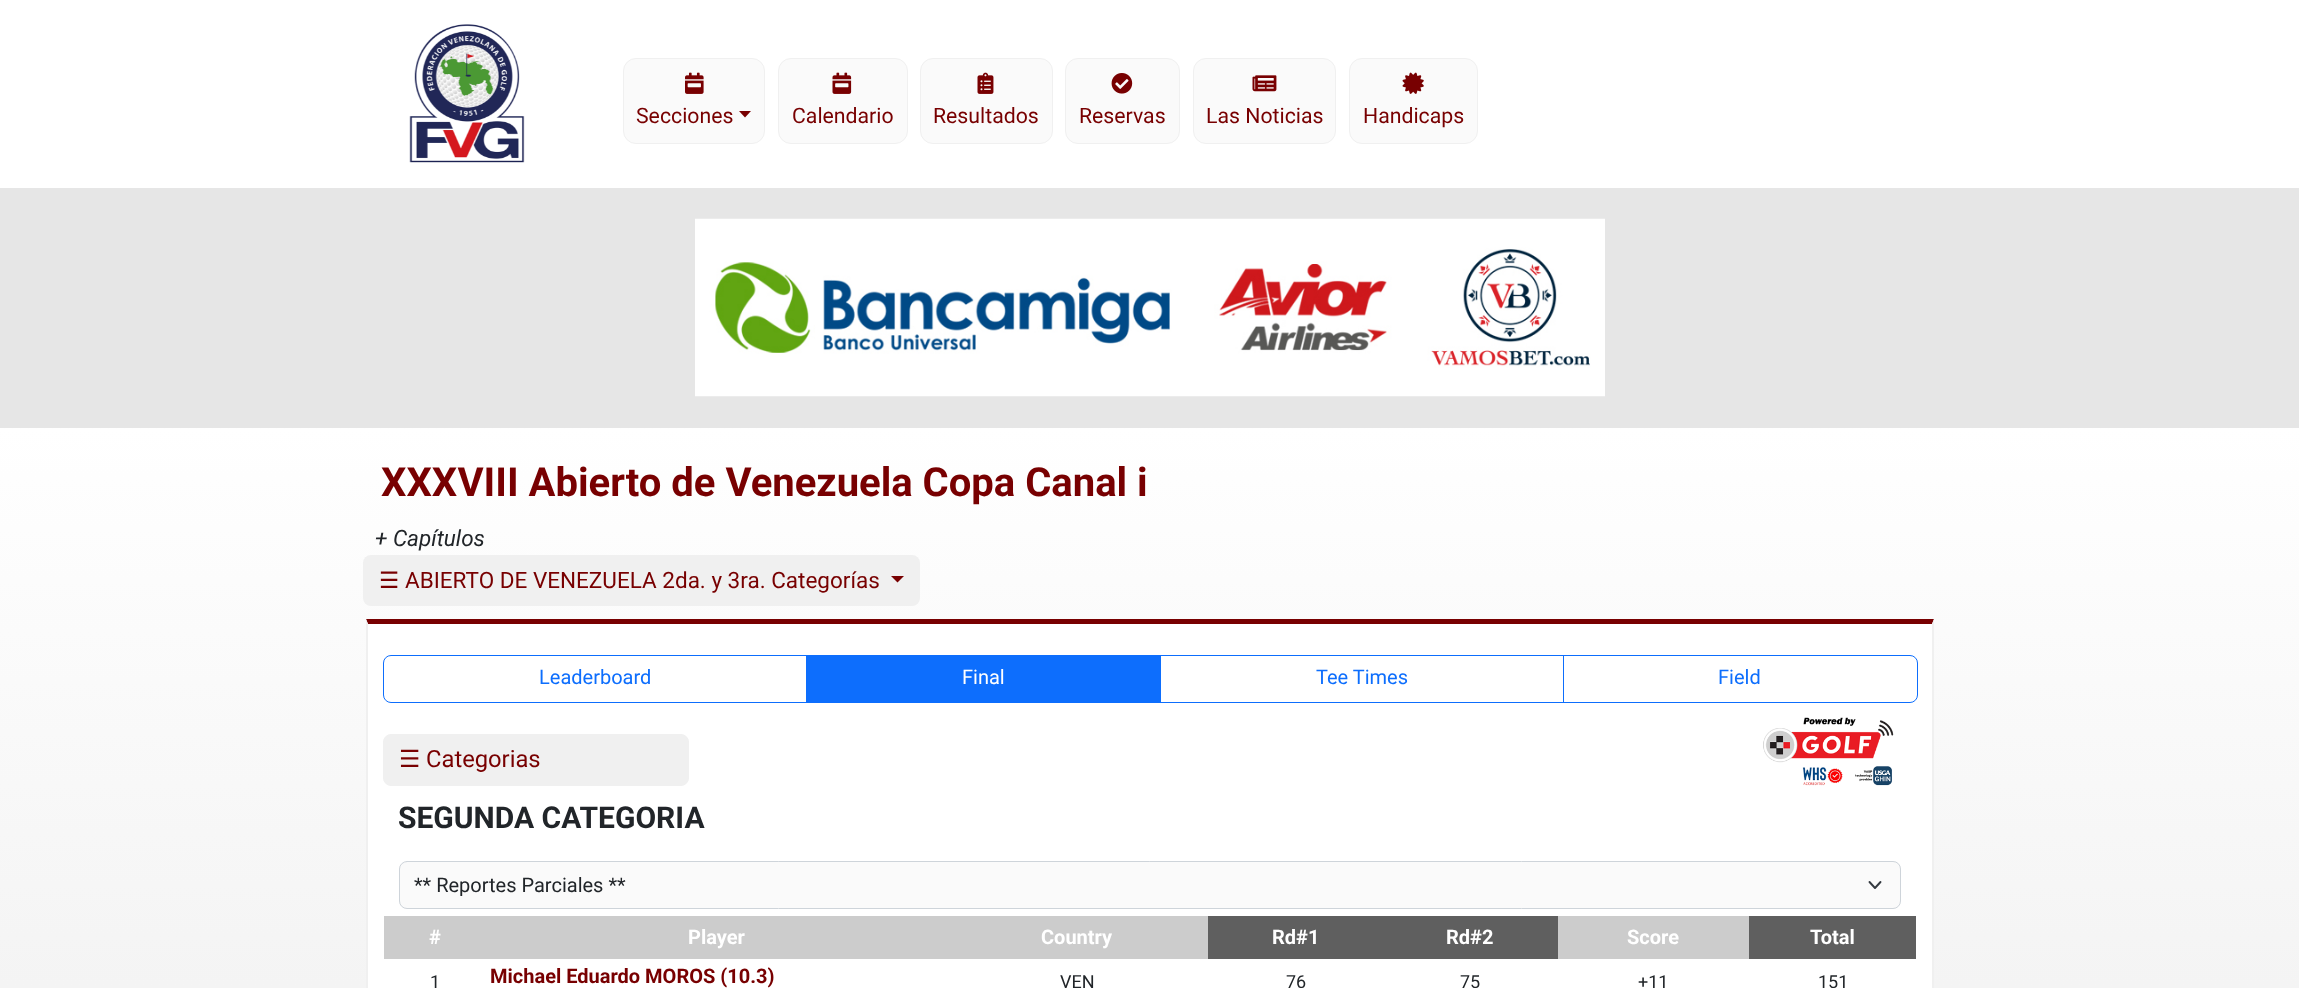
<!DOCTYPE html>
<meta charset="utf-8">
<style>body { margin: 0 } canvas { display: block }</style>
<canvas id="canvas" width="2299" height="988"></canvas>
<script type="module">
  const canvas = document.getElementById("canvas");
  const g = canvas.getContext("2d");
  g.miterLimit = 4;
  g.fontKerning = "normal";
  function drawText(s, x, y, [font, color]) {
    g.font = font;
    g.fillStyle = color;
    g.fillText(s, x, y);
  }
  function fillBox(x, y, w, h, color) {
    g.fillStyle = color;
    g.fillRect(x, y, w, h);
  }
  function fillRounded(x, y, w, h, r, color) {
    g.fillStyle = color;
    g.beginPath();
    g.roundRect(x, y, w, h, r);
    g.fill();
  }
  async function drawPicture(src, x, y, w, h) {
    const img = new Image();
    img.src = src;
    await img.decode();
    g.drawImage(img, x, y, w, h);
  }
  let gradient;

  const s1 = ["21.25px Roboto", "#780001"];
  const s2 = ["bold 40px Roboto", "#780001"];
  const s3 = ["italic 22.5px Roboto", "#212529"];
  const s4 = ["22.5px DejaVu Sans", "#780001"];
  const s5 = ["22.5px Roboto", "#780001"];
  const s6 = ["20px Roboto", "#0D6EFD"];
  const s7 = ["20px Roboto", "#FFFFFF"];
  const s8 = ["23.75px DejaVu Sans", "#780001"];
  const s9 = ["23.75px Roboto", "#780001"];
  const s10 = ["bold 30px Roboto", "#212529"];
  const s11 = ["20px Roboto", "#212529"];
  const s12 = ["bold 20px Roboto", "#FFFFFF"];
  const s13 = ["18px Roboto", "#212529"];
  const s14 = ["bold 20px Roboto", "#780001"];

  fillBox(0, 0, 2299, 988, "#E6E6E6");
  fillBox(0, 0, 2299, 188, "#FFFFFF");
  await drawPicture("pic1.png", 409, 24, 116, 139);
  g.fillStyle = "#FAFAFA";
  g.beginPath();
  g.roundRect(623.5, 58.5, 141, 85, 12.5);
  g.fill();
  g.strokeStyle = "#F0F0F0";
  g.stroke();
  await drawPicture("pic2.png", 685, 72, 19, 22);
  drawText("Secciones", 636, 123, s1);
  g.beginPath();
  g.moveTo(739, 111);
  g.lineTo(751, 111);
  g.lineTo(745, 117.5);
  g.closePath();
  g.fill();
  g.fillStyle = "#FAFAFA";
  g.beginPath();
  g.roundRect(778.5, 58.5, 129, 85, 12.5);
  g.fill();
  g.stroke();
  await drawPicture("pic3.png", 832, 72, 20, 22);
  drawText("Calendario", 792, 123, s1);
  g.fillStyle = "#FAFAFA";
  g.beginPath();
  g.roundRect(920.5, 58.5, 132, 85, 12.5);
  g.fill();
  g.stroke();
  await drawPicture("pic4.png", 977, 72, 17, 22);
  drawText("Resultados", 933, 123, s1);
  g.fillStyle = "#FAFAFA";
  g.beginPath();
  g.roundRect(1065.5, 58.5, 114, 85, 12.5);
  g.fill();
  g.stroke();
  await drawPicture("pic5.png", 1111, 73, 22, 21);
  drawText("Reservas", 1079, 123, s1);
  g.fillStyle = "#FAFAFA";
  g.beginPath();
  g.roundRect(1193.5, 58.5, 142, 85, 12.5);
  g.fill();
  g.stroke();
  await drawPicture("pic6.png", 1252, 75, 25, 17);
  drawText("Las Noticias", 1206, 123, s1);
  g.fillStyle = "#FAFAFA";
  g.beginPath();
  g.roundRect(1349.5, 58.5, 128, 85, 12.5);
  g.fill();
  g.stroke();
  await drawPicture("pic7.png", 1402, 72, 22, 22);
  drawText("Handicaps", 1363, 123, s1);
  await drawPicture("pic8.png", 695, 218, 910, 179);
  gradient = g.createLinearGradient(1150, 427, 1150, 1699);
  gradient.addColorStop(0, "#FFFFFF");
  gradient.addColorStop(1, "#E6E6E6");
  g.fillStyle = gradient;
  g.fillRect(0, 428, 2299, 560);
  drawText("XXXVIII Abierto de Venezuela Copa Canal i", 381, 496, s2);
  drawText("+ Capítulos", 375, 546, s3);
  fillRounded(363, 555, 557, 51, 8, "#F0F0F0");
  drawText("☰", 379, 588, s4);
  drawText("ABIERTO DE VENEZUELA 2da. y 3ra. Categorías", 405, 588, s5);
  g.beginPath();
  g.moveTo(891, 576);
  g.lineTo(904, 576);
  g.lineTo(897.5, 582.5);
  g.closePath();
  g.fill();
  fillBox(368, 624, 1564, 364, "#FFFFFF");
  g.fillStyle = "#780001";
  g.beginPath();
  g.moveTo(366, 619);
  g.lineTo(1934, 619);
  g.lineTo(1932, 624);
  g.lineTo(368, 624);
  g.closePath();
  g.fill();
  g.fillStyle = "#F0F0F0";
  g.beginPath();
  g.moveTo(1934, 619);
  g.lineTo(1934, 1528);
  g.lineTo(1932, 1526);
  g.lineTo(1932, 624);
  g.closePath();
  g.fill();
  g.beginPath();
  g.moveTo(366, 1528);
  g.lineTo(366, 619);
  g.lineTo(368, 624);
  g.lineTo(368, 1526);
  g.closePath();
  g.fill();
  g.beginPath();
  g.roundRect(383.5, 655.5, 424, 47, [7.5, 0, 0, 7.5]);
  g.strokeStyle = "#0D6EFD";
  g.stroke();
  drawText("Leaderboard", 539, 684, s6);
  fillBox(806, 655, 354, 48, "#0D6EFD");
  drawText("Final", 962, 684, s7);
  g.strokeRect(1160.5, 655.5, 403, 47);
  drawText("Tee Times", 1316, 684, s6);
  g.beginPath();
  g.roundRect(1563.5, 655.5, 354, 47, [0, 7.5, 7.5, 0]);
  g.stroke();
  drawText("Field", 1718, 684, s6);
  g.fillStyle = "#F0F0F0";
  g.beginPath();
  g.roundRect(383.5, 734.5, 305, 51, 7.5);
  g.fill();
  g.strokeStyle = "#F0F0F0";
  g.stroke();
  drawText("☰", 399, 767, s8);
  drawText("Categorias", 426, 767, s9);
  await drawPicture("pic9.png", 1763, 717, 131, 69);
  drawText("SEGUNDA CATEGORIA", 398, 828, s10);
  fillRounded(399, 861, 1502, 48, 8, "#FAFAFA");
  g.beginPath();
  g.moveTo(1869.5, 882);
  g.lineTo(1875, 888);
  g.lineTo(1880.5, 882);
  g.strokeStyle = "#343A40";
  g.lineWidth = 1.9;
  g.lineCap = "round";
  g.lineJoin = "round";
  g.stroke();
  g.beginPath();
  g.roundRect(399.5, 861.5, 1501, 47, 7.5);
  g.strokeStyle = "#CED4DA";
  g.lineWidth = 1;
  g.lineJoin = "miter";
  g.stroke();
  drawText("** Reportes Parciales **", 414, 892, s11);
  fillBox(384, 916, 824, 43, "#CCCCCC");
  drawText("#", 429, 944, s12);
  drawText("Player", 688, 944, s12);
  drawText("Country", 1041, 944, s12);
  fillBox(1208, 916, 350, 43, "#5F5F5F");
  drawText("Rd#1", 1272, 944, s12);
  drawText("Rd#2", 1446, 944, s12);
  fillBox(1558, 916, 191, 43, "#CCCCCC");
  drawText("Score", 1627, 944, s12);
  fillBox(1749, 916, 167, 43, "#5F5F5F");
  drawText("Total", 1810, 944, s12);
  drawText("1", 430, 988, s13);
  drawText("Michael Eduardo MOROS (10.3)", 490, 983, s14);
  drawText("VEN", 1060, 988, s13);
  drawText("76", 1286, 988, s13);
  drawText("75", 1460, 988, s13);
  drawText("+11", 1638, 988, s13);
  drawText("151", 1818, 988, s13);
</script>
